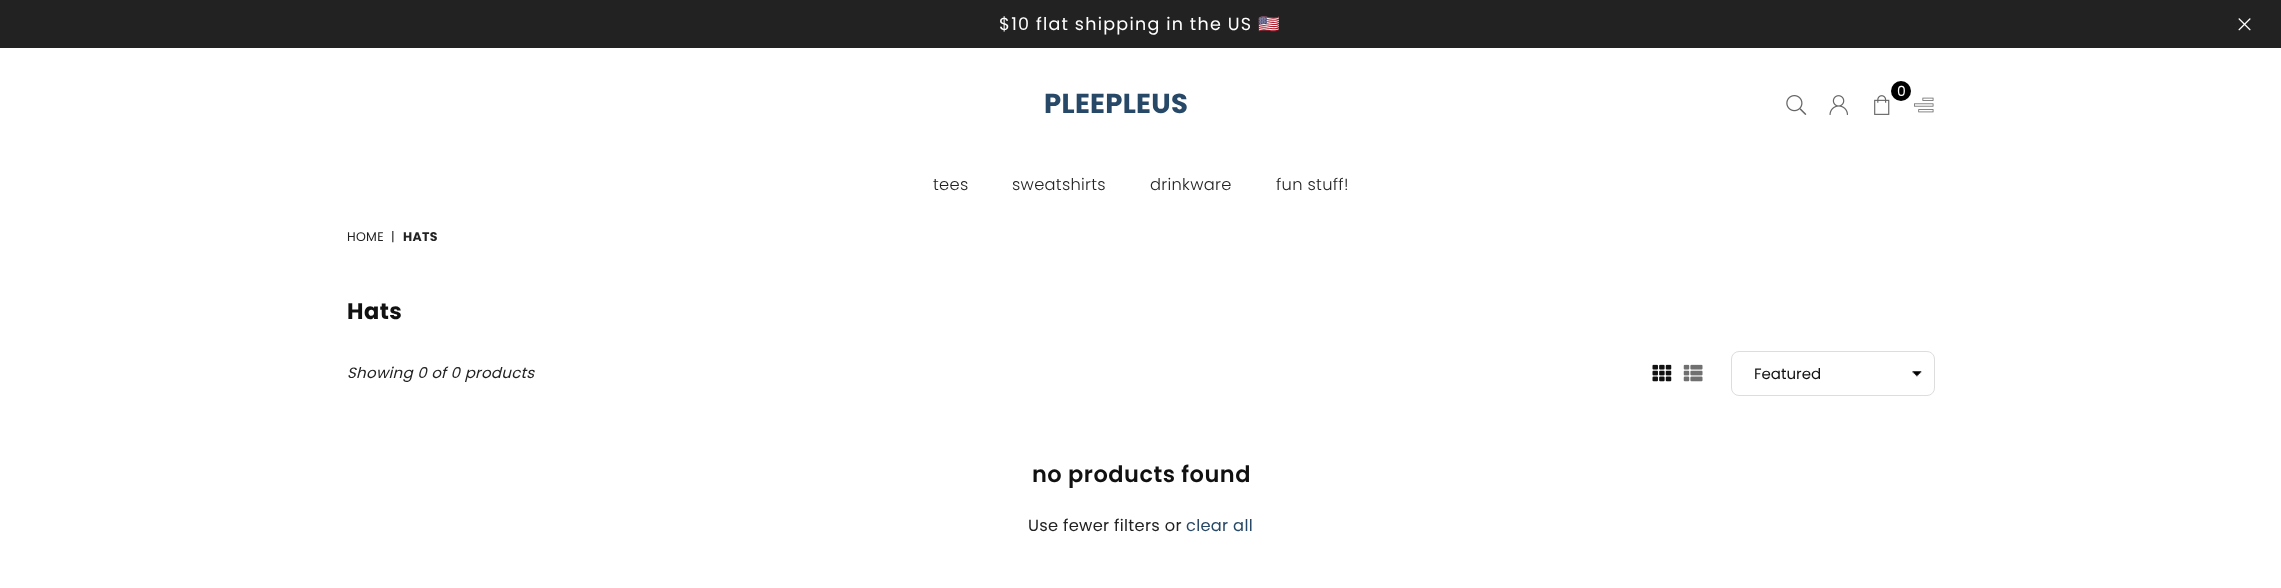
<!DOCTYPE html>
<meta charset="utf-8">
<style>body { margin: 0 } canvas { display: block }</style>
<canvas id="canvas" width="2281" height="588"></canvas>
<script type="module">
  const canvas = document.getElementById("canvas");
  const g = canvas.getContext("2d");
  g.miterLimit = 4;
  g.fontKerning = "normal";
  function drawText(s, x, y, [font, color]) {
    g.font = font;
    g.fillStyle = color;
    g.fillText(s, x, y);
  }
  function fillBox(x, y, w, h, color) {
    g.fillStyle = color;
    g.fillRect(x, y, w, h);
  }
  async function drawPicture(src, x, y, w, h) {
    const img = new Image();
    img.src = src;
    await img.decode();
    g.drawImage(img, x, y, w, h);
  }

  const s1 = ["17.5px Poppins", "#FFFFFF"];
  const s2 = ["17.5px Noto Color Emoji", "#FFFFFF"];
  const s3 = ["14px Poppins", "#FFFFFF"];
  const s4 = ["bold 27.5px Poppins", "#274866"];
  const s5 = ["300 16.25px Poppins", "#222222"];
  const s6 = ["12.5px Poppins", "#222222"];
  const s7 = ["bold 12.5px Poppins", "#222222"];
  const s8 = ["bold 22.5px Poppins", "#111111"];
  const s9 = ["italic 15px Poppins", "#222222"];
  const s10 = ["15px Poppins", "#111111"];
  const s11 = ["600 22.5px Poppins", "#111111"];
  const s12 = ["16.25px Poppins", "#222222"];
  const s13 = ["16.25px Poppins", "#274866"];

  fillBox(0, 0, 2281, 588, "#FFFFFF");
  fillBox(0, 0, 2281, 48, "#222222");
  g.letterSpacing = "1.25px";
  g.wordSpacing = "-0.25px";
  drawText("$10 flat shipping in the US", 999, 30, s1);
  g.wordSpacing = "0px";
  drawText("🇺🇸", 1258, 30, s2);
  await drawPicture("pic1.png", 2238, 18, 13, 13);
  g.fillStyle = "#000000";
  g.beginPath();
  g.arc(1901, 91, 10, 0, Math.PI * 2);
  g.fill();
  g.letterSpacing = "0.3px";
  drawText("0", 1897, 96, s3);
  await drawPicture("pic2.png", 1874, 95, 16, 20);
  await drawPicture("pic3.png", 1786, 95, 21, 20);
  await drawPicture("pic4.png", 1829, 95, 19, 20);
  await drawPicture("pic5.png", 1914, 97, 20, 16);
  drawText("PLEEPLEUS", 1044, 113, s4);
  drawText("tees", 933, 190, s5);
  drawText("sweatshirts", 1012, 190, s5);
  drawText("drinkware", 1150, 190, s5);
  drawText("fun stuff!", 1276, 190, s5);
  drawText("HOME", 347, 241, s6);
  drawText("|", 391, 241, s6);
  drawText("HATS", 403, 241, s7);
  g.letterSpacing = "0.5px";
  drawText("Hats", 347, 319, s8);
  g.letterSpacing = "0.3px";
  drawText("Showing 0 of 0 products", 347, 378, s9);
  await drawPicture("pic6.png", 1652, 364, 20, 18);
  await drawPicture("pic7.png", 1683, 364, 20, 18);
  await drawPicture("pic8.png", 1912, 371, 10, 6);
  g.beginPath();
  g.roundRect(1731.5, 351.5, 203, 44, 7.5);
  g.strokeStyle = "#DDDDDD";
  g.stroke();
  g.letterSpacing = "0px";
  drawText("Featured", 1754, 379, s10);
  g.letterSpacing = "0.5px";
  drawText("no products found", 1032, 482, s11);
  g.letterSpacing = "0.3px";
  drawText("Use fewer filters or", 1028, 531, s12);
  drawText("clear all", 1186, 531, s13);
</script>
